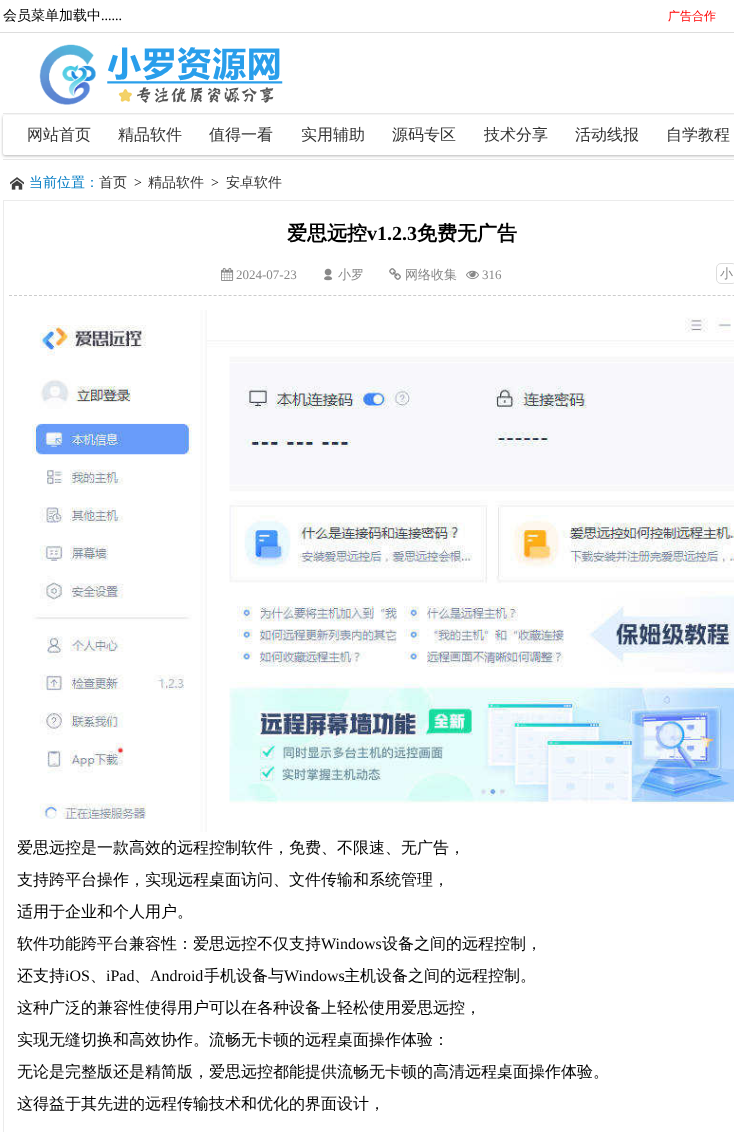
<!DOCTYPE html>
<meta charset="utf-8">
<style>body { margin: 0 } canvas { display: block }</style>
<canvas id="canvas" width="734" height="1132"></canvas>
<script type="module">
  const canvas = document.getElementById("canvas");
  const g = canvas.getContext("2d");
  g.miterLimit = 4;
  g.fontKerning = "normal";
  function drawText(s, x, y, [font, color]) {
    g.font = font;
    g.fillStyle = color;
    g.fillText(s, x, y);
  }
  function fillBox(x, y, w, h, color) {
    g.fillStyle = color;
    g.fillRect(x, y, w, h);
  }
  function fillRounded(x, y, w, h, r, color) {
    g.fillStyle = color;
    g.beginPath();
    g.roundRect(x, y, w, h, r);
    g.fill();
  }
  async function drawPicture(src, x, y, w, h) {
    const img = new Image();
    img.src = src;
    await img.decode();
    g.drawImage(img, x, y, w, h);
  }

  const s1 = ["500 14px WenQuanYi Zen Hei", "#000000"];
  const s2 = ["14px Liberation Serif", "#000000"];
  const s3 = ["500 12px WenQuanYi Zen Hei", "#FF0000"];
  const s4 = ["500 16px WenQuanYi Zen Hei", "#333333"];
  const s5 = ["500 14px WenQuanYi Zen Hei", "#057DC4"];
  const s6 = ["500 14px WenQuanYi Zen Hei", "#333333"];
  const s7 = ["bold 20px WenQuanYi Zen Hei", "#000000"];
  const s8 = ["bold 20px Liberation Serif", "#000000"];
  const s9 = ["13px Liberation Serif", "#888888"];
  const s10 = ["500 13px WenQuanYi Zen Hei", "#888888"];
  const s11 = ["500 16px WenQuanYi Zen Hei", "#000000"];
  const s12 = ["16px Liberation Serif", "#000000"];

  fillBox(0, 0, 734, 1132, "#FFFFFF");
  fillBox(0, 32, 734, 1, "#DDDDDD");
  drawText("会员菜单加载中", 3, 20, s1);
  drawText("......", 101, 20, s2);
  drawText("广告合作", 668, 20, s3);
  await drawPicture("pic1.png", 39, 44, 244, 61);
  g.fillStyle = "#B5B5B5";
  g.filter = "blur(1.5px)";
  g.beginPath();
  g.roundRect(3, 116, 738, 40, 2);
  g.fill();
  g.filter = "none";
  fillBox(3, 113, 731, 1, "#E7E7E7");
  fillRounded(3, 115, 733, 40, 2, "#FFFFFF");
  drawText("网站首页", 27, 140, s4);
  drawText("精品软件", 118, 140, s4);
  drawText("值得一看", 209, 140, s4);
  drawText("实用辅助", 301, 140, s4);
  drawText("源码专区", 392, 140, s4);
  drawText("技术分享", 484, 140, s4);
  drawText("活动线报", 575, 140, s4);
  drawText("自学教程", 666, 140, s4);
  fillBox(3, 159, 731, 1, "#E7E7E7");
  await drawPicture("pic2.png", 10, 177, 14, 13);
  drawText("当前位置：", 29, 187, s5);
  drawText("首页", 99, 187, s6);
  drawText(">", 134, 187, s2);
  drawText("精品软件", 148, 187, s6);
  drawText(">", 211, 187, s2);
  drawText("安卓软件", 226, 187, s6);
  g.strokeStyle = "#EBEBEB";
  g.strokeRect(3.5, 200.5, 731, 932);
  drawText("爱思远控", 287, 240, s7);
  drawText("v1.2.3", 367, 240, s8);
  drawText("免费无广告", 417, 240, s7);
  await drawPicture("pic3.png", 221, 267, 13, 14);
  drawText("2024-07-23", 236, 279, s9);
  await drawPicture("pic4.png", 324, 268, 9, 13);
  drawText("小罗", 338, 279, s10);
  await drawPicture("pic5.png", 389, 268, 12, 12);
  drawText("网络收集", 405, 279, s10);
  await drawPicture("pic6.png", 466, 270, 13, 10);
  drawText("316", 482, 279, s9);
  g.beginPath();
  g.roundRect(716.5, 263.5, 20, 20, 4.5);
  g.strokeStyle = "#DDDDDD";
  g.stroke();
  drawText("小", 720, 278, s10);
  g.beginPath();
  g.moveTo(9, 295.5);
  g.lineTo(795, 295.5);
  g.strokeStyle = "#CCCCCC";
  g.setLineDash([3, 1.99]);
  g.stroke();
  await drawPicture("pic7.png", 32, 310, 702, 522);
  drawText("爱思远控是一款高效的远程控制软件，免费、不限速、无广告，", 17, 853, s11);
  drawText("支持跨平台操作，实现远程桌面访问、文件传输和系统管理，", 17, 885, s11);
  drawText("适用于企业和个人用户。", 17, 917, s11);
  drawText("软件功能跨平台兼容性：爱思远控不仅支持", 17, 949, s11);
  drawText("Windows", 321, 949, s12);
  drawText("设备之间的远程控制，", 382, 949, s11);
  drawText("还支持", 17, 981, s11);
  drawText("iOS", 65, 981, s12);
  drawText("、", 90, 981, s11);
  drawText("iPad", 106, 981, s12);
  drawText("、", 134, 981, s11);
  drawText("Android", 150, 981, s12);
  drawText("手机设备与", 204, 981, s11);
  drawText("Windows", 284, 981, s12);
  drawText("主机设备之间的远程控制。", 344, 981, s11);
  drawText("这种广泛的兼容性使得用户可以在各种设备上轻松使用爱思远控，", 17, 1013, s11);
  drawText("实现无缝切换和高效协作。流畅无卡顿的远程桌面操作体验：", 17, 1045, s11);
  drawText("无论是完整版还是精简版，爱思远控都能提供流畅无卡顿的高清远程桌面操作体验。", 17, 1077, s11);
  drawText("这得益于其先进的远程传输技术和优化的界面设计，", 17, 1109, s11);
</script>
